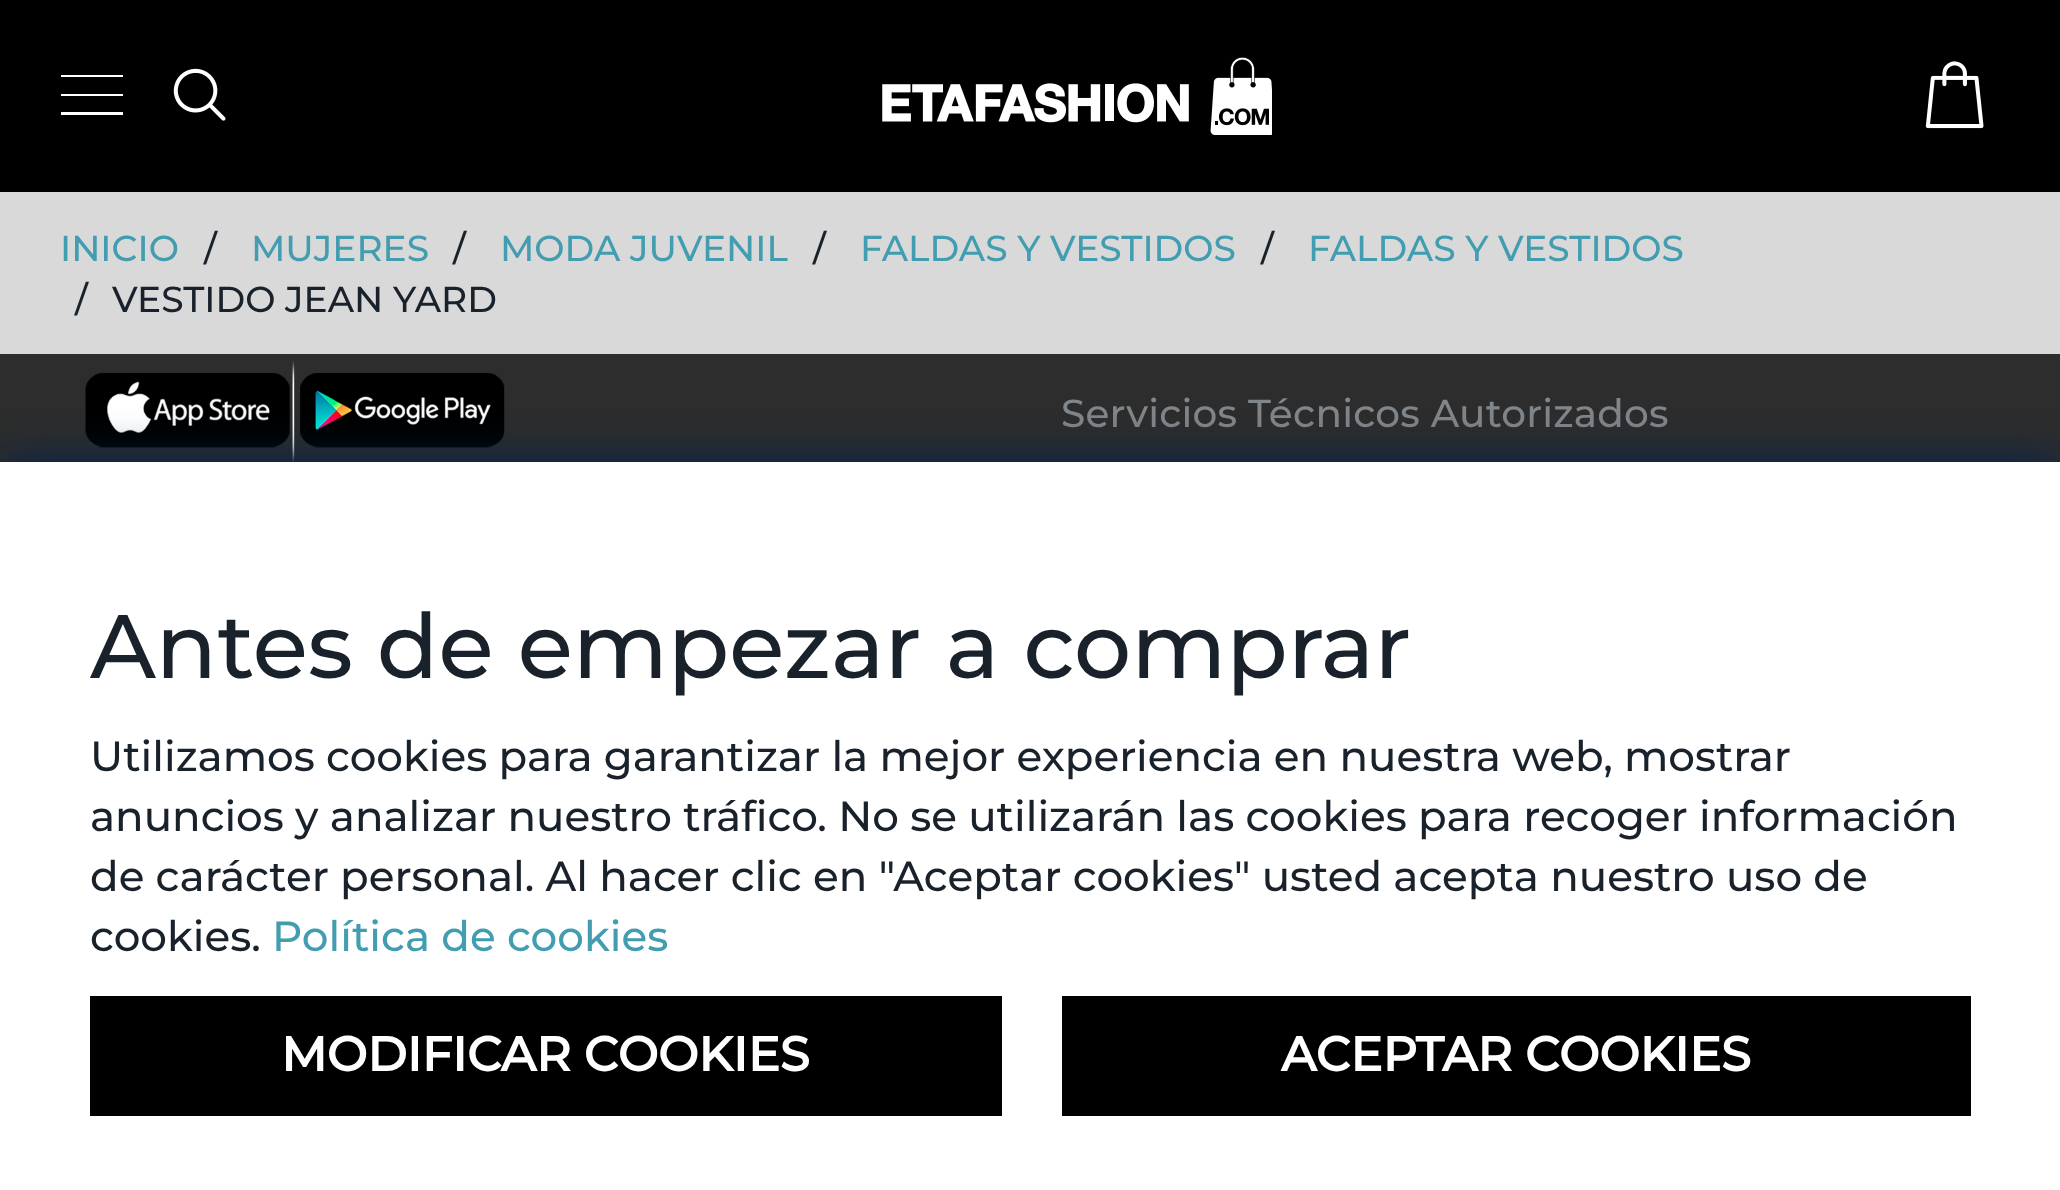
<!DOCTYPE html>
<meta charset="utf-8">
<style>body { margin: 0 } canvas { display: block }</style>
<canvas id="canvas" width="2060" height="1190"></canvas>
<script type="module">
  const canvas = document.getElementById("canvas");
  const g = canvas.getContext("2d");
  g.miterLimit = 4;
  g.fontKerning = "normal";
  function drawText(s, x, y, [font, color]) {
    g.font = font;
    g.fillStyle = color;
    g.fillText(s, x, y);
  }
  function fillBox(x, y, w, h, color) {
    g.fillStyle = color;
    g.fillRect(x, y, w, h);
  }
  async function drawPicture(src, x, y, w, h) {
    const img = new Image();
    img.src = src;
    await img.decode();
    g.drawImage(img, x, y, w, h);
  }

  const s1 = ["500 36px Montserrat", "#419DAF"];
  const s2 = ["500 36px Montserrat", "#19212B"];
  const s3 = ["500 39px Montserrat", "#80868A"];
  const s4 = ["500 90px Montserrat", "#19212B"];
  const s5 = ["500 42px Montserrat", "#19212B"];
  const s6 = ["500 42px Montserrat", "#419DAF"];
  const s7 = ["bold 48px Montserrat", "#FFFFFF"];

  fillBox(0, 0, 2060, 1190, "#2D2D2D");
  fillBox(0, 0, 2060, 192, "#000000");
  g.fillStyle = "#FFFFFF";
  g.beginPath();
  g.moveTo(61, 75);
  g.lineTo(123, 75);
  g.lineTo(123, 77);
  g.lineTo(61, 77);
  g.closePath();
  g.moveTo(61, 94);
  g.lineTo(123, 94);
  g.lineTo(123, 96);
  g.lineTo(61, 96);
  g.closePath();
  g.moveTo(61, 112);
  g.lineTo(123, 112);
  g.lineTo(123, 115);
  g.lineTo(61, 115);
  g.closePath();
  g.fill();
  await drawPicture("pic1.png", 173, 68, 53, 53);
  await drawPicture("pic2.png", 882, 57, 390, 78);
  await drawPicture("pic3.png", 1925, 61, 59, 68);
  fillBox(0, 192, 2060, 162, "#D9D9D9");
  drawText("INICIO", 60, 261, s1);
  drawText("/", 204, 261, s2);
  drawText("MUJERES", 251, 261, s1);
  drawText("/", 453, 261, s2);
  drawText("MODA JUVENIL", 500, 261, s1);
  drawText("/", 813, 261, s2);
  drawText("FALDAS Y VESTIDOS", 860, 261, s1);
  drawText("/", 1261, 261, s2);
  drawText("FALDAS Y VESTIDOS", 1308, 261, s1);
  drawText("/", 75, 312, s2);
  drawText("VESTIDO JEAN YARD", 112, 312, s2);
  await drawPicture("pic4.png", 85, 360, 420, 102);
  g.letterSpacing = "0.2px";
  drawText("Servicios Técnicos Autorizados", 1061, 427, s3);
  g.fillStyle = "#00214B";
  g.filter = "blur(22.5px)";
  g.beginPath();
  g.rect(0, 462, 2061, 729);
  g.fill();
  g.filter = "none";
  fillBox(0, 462, 2060, 728, "#FFFFFF");
  g.letterSpacing = "0px";
  drawText("Antes de empezar a comprar", 90, 678, s4);
  drawText("Utilizamos cookies para garantizar la mejor experiencia en nuestra web, mostrar", 90, 771, s5);
  drawText("anuncios y analizar nuestro tráfico. No se utilizarán las cookies para recoger información", 90, 831, s5);
  drawText("de carácter personal. Al hacer clic en \"Aceptar cookies\" usted acepta nuestro uso de", 90, 891, s5);
  drawText("cookies.", 90, 951, s5);
  drawText("Política de cookies", 272, 951, s6);
  fillBox(90, 996, 912, 120, "#000000");
  drawText("MODIFICAR COOKIES", 281, 1071, s7);
  fillBox(1062, 996, 909, 120, "#000000");
  drawText("ACEPTAR COOKIES", 1281, 1071, s7);
</script>
